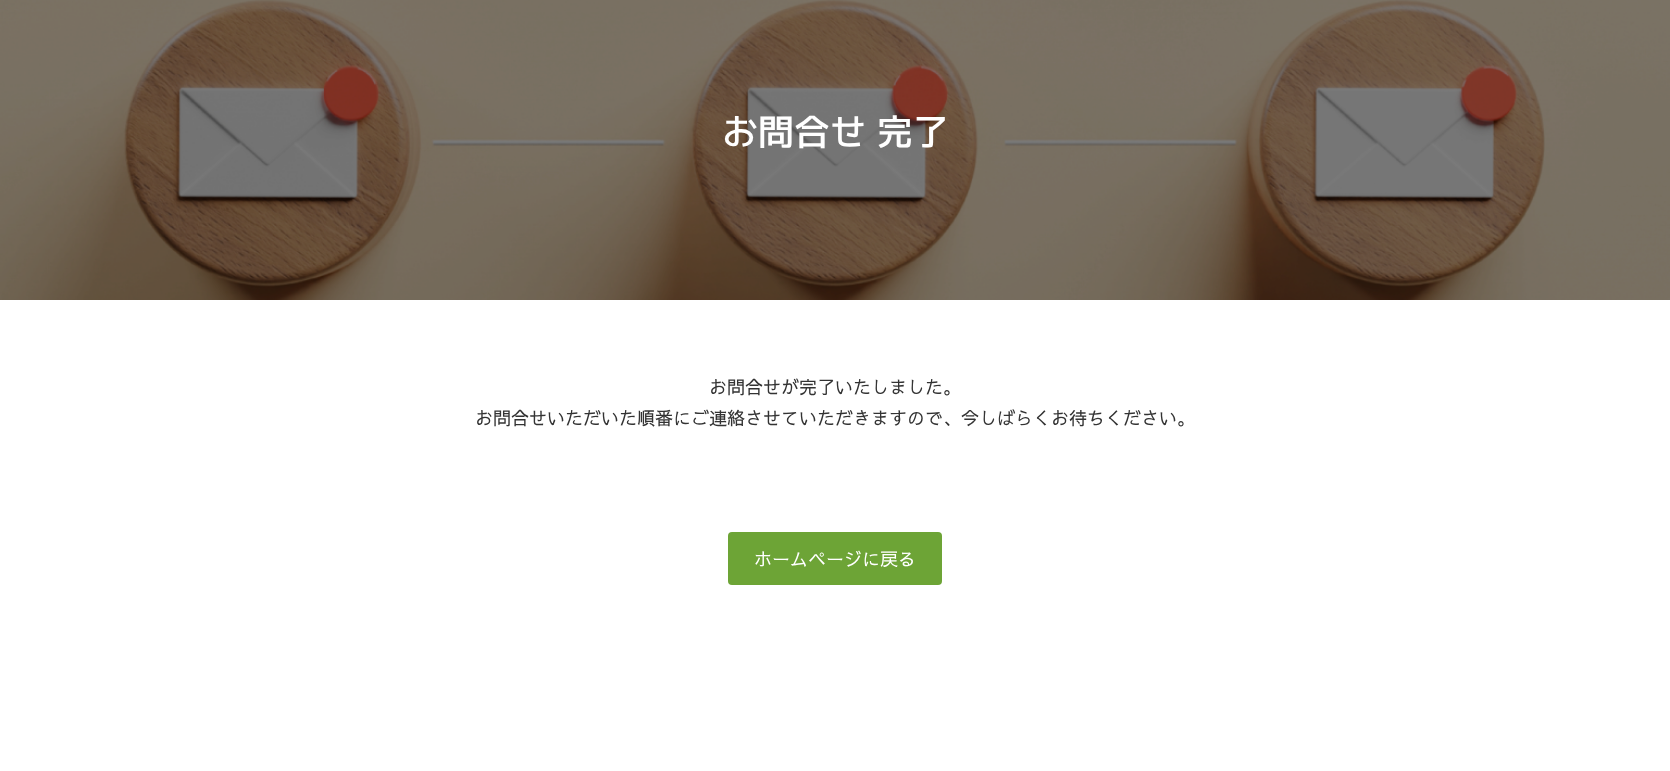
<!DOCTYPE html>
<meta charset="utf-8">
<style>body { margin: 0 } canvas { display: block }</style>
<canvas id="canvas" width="1670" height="771"></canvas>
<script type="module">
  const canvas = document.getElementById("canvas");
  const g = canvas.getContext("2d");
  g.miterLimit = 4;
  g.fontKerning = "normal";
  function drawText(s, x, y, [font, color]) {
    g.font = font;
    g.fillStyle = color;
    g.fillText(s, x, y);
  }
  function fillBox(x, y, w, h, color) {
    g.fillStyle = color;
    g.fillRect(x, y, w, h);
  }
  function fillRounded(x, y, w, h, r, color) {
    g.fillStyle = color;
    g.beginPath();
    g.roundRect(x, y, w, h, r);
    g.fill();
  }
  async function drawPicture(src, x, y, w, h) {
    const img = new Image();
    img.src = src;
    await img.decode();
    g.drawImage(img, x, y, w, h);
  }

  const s1 = ["500 36px 'M PLUS 1p'", "#FFFFFF"];
  const s2 = ["18px Sawarabi Gothic", "#333333"];
  const s3 = ["18px Sawarabi Gothic", "#FFFFFF"];

  fillBox(0, 0, 1670, 771, "#FFFFFF");
  await drawPicture("pic1.png", 0, 0, 1670, 300);
  drawText("お問合せ 完了", 722, 145, s1);
  drawText("お問合せが完了いたしました。", 709, 394, s2);
  drawText("お問合せいただいた順番にご連絡させていただきますので、今しばらくお待ちください。", 475, 425, s2);
  fillRounded(728, 532, 214, 53, 4, "#6DA436");
  drawText("ホームページに戻る", 754, 566, s3);
</script>
